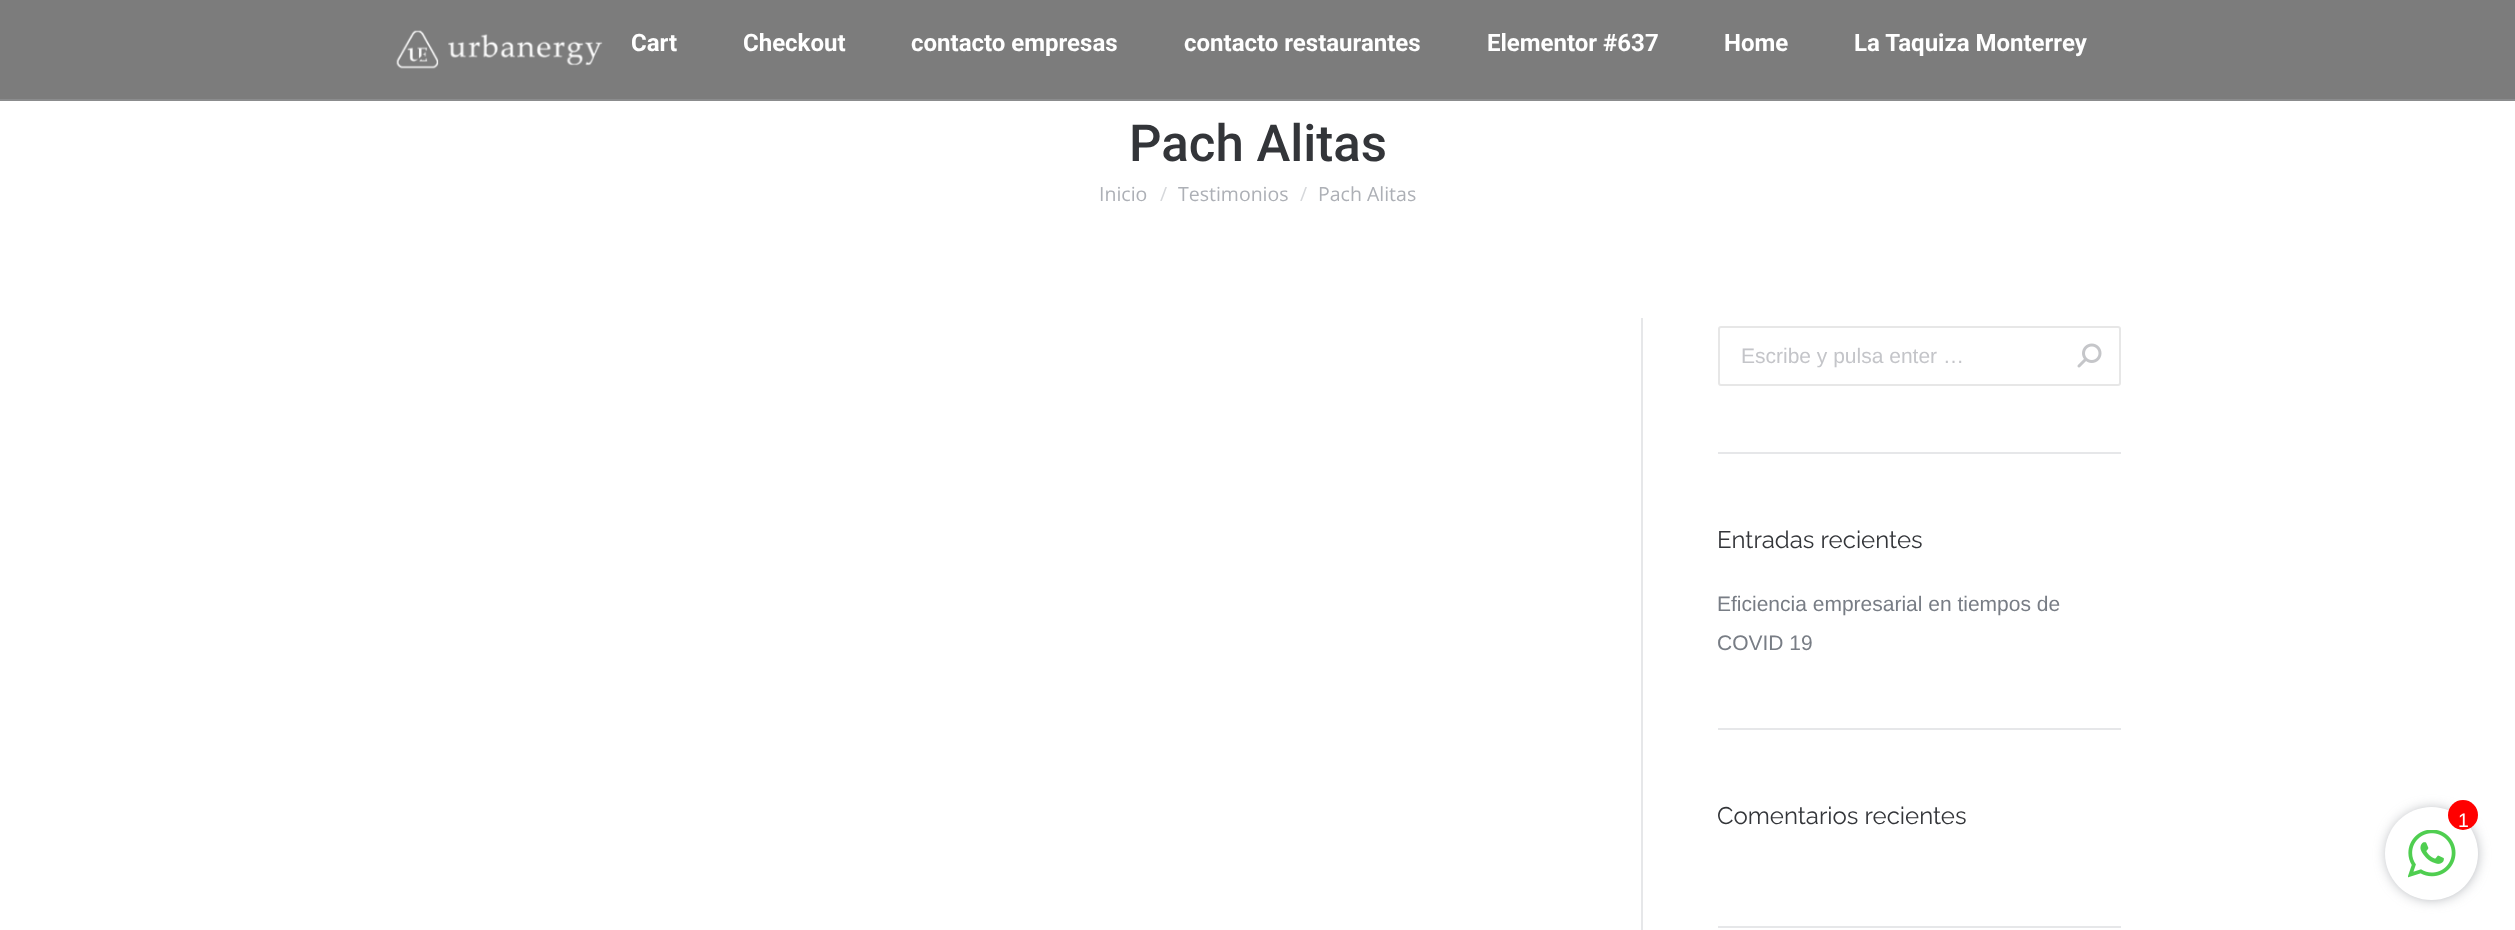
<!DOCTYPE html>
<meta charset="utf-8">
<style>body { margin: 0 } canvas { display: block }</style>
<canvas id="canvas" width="2515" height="930"></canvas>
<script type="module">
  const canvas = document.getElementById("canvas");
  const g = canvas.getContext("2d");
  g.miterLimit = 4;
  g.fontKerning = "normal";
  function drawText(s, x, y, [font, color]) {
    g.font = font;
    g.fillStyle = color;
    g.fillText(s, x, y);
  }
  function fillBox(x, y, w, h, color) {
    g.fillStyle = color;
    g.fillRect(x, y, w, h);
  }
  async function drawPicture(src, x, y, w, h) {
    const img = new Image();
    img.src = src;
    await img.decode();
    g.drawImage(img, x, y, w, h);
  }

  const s1 = ["bold 24px Roboto", "#FFFFFF"];
  const s2 = ["500 51px Roboto", "#333539"];
  const s3 = ["19.5px Open Sans", "#ADB0B6"];
  const s4 = ["19.5px Open Sans", "#D6D8DB"];
  const s5 = ["21px Liberation Sans", "#C4C5C9"];
  const s6 = ["24px Raleway", "#333539"];
  const s7 = ["21px Liberation Sans", "#787D85"];
  const s8 = ["19.5px Liberation Sans", "#FFFFFF"];

  fillBox(0, 0, 2515, 930, "#FFFFFF");
  fillBox(0, 0, 2515, 99, "#7C7C7C");
  fillBox(0, 99, 2515, 2, "#8B8C8D");
  await drawPicture("pic1.png", 396, 30, 207, 39);
  drawText("Cart", 631, 51, s1);
  drawText("Checkout", 743, 51, s1);
  drawText("contacto empresas", 911, 51, s1);
  drawText("contacto restaurantes", 1184, 51, s1);
  drawText("Elementor #637", 1487, 51, s1);
  drawText("Home", 1724, 51, s1);
  drawText("La Taquiza Monterrey", 1854, 51, s1);
  drawText("Pach Alitas", 1129, 161, s2);
  drawText("Inicio", 1099, 201, s3);
  drawText("/", 1160, 201, s4);
  drawText("Testimonios", 1178, 201, s3);
  drawText("/", 1300, 201, s4);
  drawText("Pach Alitas", 1318, 201, s3);
  fillBox(1641, 318, 2, 612, "#E6E7E9");
  g.beginPath();
  g.roundRect(1719, 327, 401, 58, 2);
  g.strokeStyle = "#E7E7E7";
  g.lineWidth = 2;
  g.stroke();
  drawText("Escribe y pulsa enter …", 1741, 363, s5);
  await drawPicture("pic2.png", 2077, 343, 25, 25);
  fillBox(1718, 452, 403, 2, "#E6E7E9");
  drawText("Entradas recientes", 1717, 548, s6);
  drawText("Eficiencia empresarial en tiempos de", 1717, 611, s7);
  drawText("COVID 19", 1717, 650, s7);
  fillBox(1718, 728, 403, 2, "#E6E7E9");
  drawText("Comentarios recientes", 1717, 824, s6);
  fillBox(1718, 926, 403, 2, "#E6E7E9");
  g.fillStyle = "#787D85";
  g.filter = "blur(7.5px)";
  g.beginPath();
  g.roundRect(2390, 812, 84, 84, 42);
  g.fill();
  g.filter = "none";
  g.fillStyle = "#FFFFFF";
  g.beginPath();
  g.arc(2431.5, 853.5, 46.5, 0, Math.PI * 2);
  g.fill();
  g.fillStyle = "#FF0000";
  g.beginPath();
  g.arc(2463, 815, 15, 0, Math.PI * 2);
  g.fill();
  drawText("1", 2458, 827, s8);
  await drawPicture("pic3.png", 2408, 830, 48, 48);
</script>
